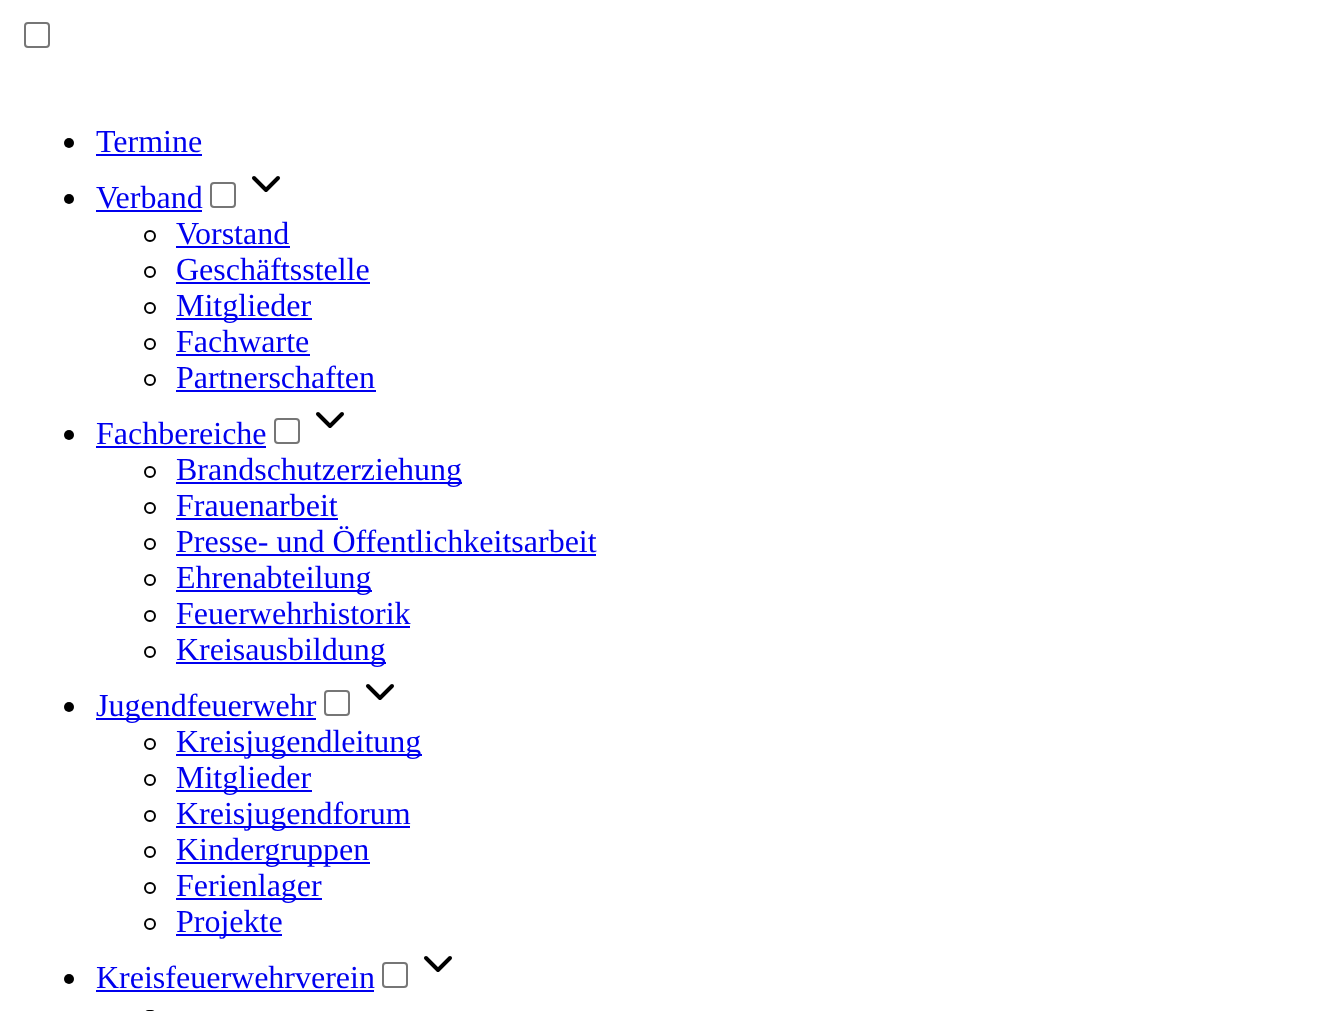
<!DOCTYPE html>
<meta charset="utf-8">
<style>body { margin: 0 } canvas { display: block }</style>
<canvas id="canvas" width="1322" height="1011"></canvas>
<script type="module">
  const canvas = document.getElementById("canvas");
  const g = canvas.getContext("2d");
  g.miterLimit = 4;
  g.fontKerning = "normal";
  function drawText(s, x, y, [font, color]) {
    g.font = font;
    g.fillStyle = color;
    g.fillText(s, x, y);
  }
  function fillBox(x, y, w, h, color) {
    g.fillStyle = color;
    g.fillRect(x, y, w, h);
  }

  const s1 = ["32px Liberation Serif", "#0000EE"];

  fillBox(0, 0, 1322, 1011, "#FFFFFF");
  g.beginPath();
  g.roundRect(25, 23, 24, 24, 3);
  g.strokeStyle = "#767676";
  g.lineWidth = 2;
  g.stroke();
  g.fillStyle = "#000000";
  g.beginPath();
  g.arc(69, 143, 5, 0, Math.PI * 2);
  g.fill();
  drawText("Termine", 96, 152, s1);
  fillBox(96, 154, 106, 2, "#0000EE");
  g.fillStyle = "#000000";
  g.beginPath();
  g.arc(69, 199, 5, 0, Math.PI * 2);
  g.fill();
  drawText("Verband", 96, 208, s1);
  fillBox(96, 210, 106, 2, "#0000EE");
  g.beginPath();
  g.roundRect(211, 183, 24, 24, 3);
  g.stroke();
  g.beginPath();
  g.moveTo(254, 178);
  g.lineTo(266, 190);
  g.lineTo(278, 178);
  g.strokeStyle = "#000000";
  g.lineWidth = 4;
  g.lineCap = "round";
  g.lineJoin = "round";
  g.stroke();
  g.beginPath();
  g.arc(150, 236, 5, 0, Math.PI * 2);
  g.lineWidth = 2;
  g.stroke();
  drawText("Vorstand", 176, 244, s1);
  fillBox(176, 246, 114, 2, "#0000EE");
  g.beginPath();
  g.arc(150, 272, 5, 0, Math.PI * 2);
  g.stroke();
  drawText("Geschäftsstelle", 176, 280, s1);
  fillBox(176, 282, 194, 2, "#0000EE");
  g.beginPath();
  g.arc(150, 308, 5, 0, Math.PI * 2);
  g.stroke();
  fillBox(176, 318, 136, 2, "#0000EE");
  drawText("Mitglieder", 176, 316, s1);
  g.beginPath();
  g.arc(150, 344, 5, 0, Math.PI * 2);
  g.stroke();
  drawText("Fachwarte", 176, 352, s1);
  fillBox(176, 354, 134, 2, "#0000EE");
  g.beginPath();
  g.arc(150, 380, 5, 0, Math.PI * 2);
  g.stroke();
  drawText("Partnerschaften", 176, 388, s1);
  fillBox(176, 390, 200, 2, "#0000EE");
  g.fillStyle = "#000000";
  g.beginPath();
  g.arc(69, 435, 5, 0, Math.PI * 2);
  g.fill();
  drawText("Fachbereiche", 96, 444, s1);
  fillBox(96, 446, 170, 2, "#0000EE");
  g.beginPath();
  g.roundRect(275, 419, 24, 24, 3);
  g.strokeStyle = "#767676";
  g.lineJoin = "miter";
  g.stroke();
  g.beginPath();
  g.moveTo(318, 414);
  g.lineTo(330, 426);
  g.lineTo(342, 414);
  g.strokeStyle = "#000000";
  g.lineWidth = 4;
  g.lineJoin = "round";
  g.stroke();
  g.beginPath();
  g.arc(150, 472, 5, 0, Math.PI * 2);
  g.lineWidth = 2;
  g.stroke();
  fillBox(176, 482, 286, 2, "#0000EE");
  drawText("Brandschutzerziehung", 176, 480, s1);
  g.beginPath();
  g.arc(150, 508, 5, 0, Math.PI * 2);
  g.stroke();
  drawText("Frauenarbeit", 176, 516, s1);
  fillBox(176, 518, 162, 2, "#0000EE");
  g.beginPath();
  g.arc(150, 544, 5, 0, Math.PI * 2);
  g.stroke();
  drawText("Presse- und Öffentlichkeitsarbeit", 176, 552, s1);
  fillBox(176, 554, 420, 2, "#0000EE");
  g.beginPath();
  g.arc(150, 580, 5, 0, Math.PI * 2);
  g.stroke();
  fillBox(176, 590, 196, 2, "#0000EE");
  drawText("Ehrenabteilung", 176, 588, s1);
  g.beginPath();
  g.arc(150, 616, 5, 0, Math.PI * 2);
  g.stroke();
  drawText("Feuerwehrhistorik", 176, 624, s1);
  fillBox(176, 626, 234, 2, "#0000EE");
  g.beginPath();
  g.arc(150, 652, 5, 0, Math.PI * 2);
  g.stroke();
  fillBox(176, 662, 210, 2, "#0000EE");
  drawText("Kreisausbildung", 176, 660, s1);
  g.fillStyle = "#000000";
  g.beginPath();
  g.arc(69, 707, 5, 0, Math.PI * 2);
  g.fill();
  fillBox(96, 718, 220, 2, "#0000EE");
  drawText("Jugendfeuerwehr", 96, 716, s1);
  g.beginPath();
  g.roundRect(325, 691, 24, 24, 3);
  g.strokeStyle = "#767676";
  g.lineJoin = "miter";
  g.stroke();
  g.beginPath();
  g.moveTo(368, 686);
  g.lineTo(380, 698);
  g.lineTo(392, 686);
  g.strokeStyle = "#000000";
  g.lineWidth = 4;
  g.lineJoin = "round";
  g.stroke();
  g.beginPath();
  g.arc(150, 744, 5, 0, Math.PI * 2);
  g.lineWidth = 2;
  g.stroke();
  fillBox(176, 754, 246, 2, "#0000EE");
  drawText("Kreisjugendleitung", 176, 752, s1);
  g.beginPath();
  g.arc(150, 780, 5, 0, Math.PI * 2);
  g.stroke();
  fillBox(176, 790, 136, 2, "#0000EE");
  drawText("Mitglieder", 176, 788, s1);
  g.beginPath();
  g.arc(150, 816, 5, 0, Math.PI * 2);
  g.stroke();
  fillBox(176, 826, 234, 2, "#0000EE");
  drawText("Kreisjugendforum", 176, 824, s1);
  g.beginPath();
  g.arc(150, 852, 5, 0, Math.PI * 2);
  g.stroke();
  fillBox(176, 862, 194, 2, "#0000EE");
  drawText("Kindergruppen", 176, 860, s1);
  g.beginPath();
  g.arc(150, 888, 5, 0, Math.PI * 2);
  g.stroke();
  fillBox(176, 898, 146, 2, "#0000EE");
  drawText("Ferienlager", 176, 896, s1);
  g.beginPath();
  g.arc(150, 924, 5, 0, Math.PI * 2);
  g.stroke();
  fillBox(176, 934, 106, 2, "#0000EE");
  drawText("Projekte", 176, 932, s1);
  g.fillStyle = "#000000";
  g.beginPath();
  g.arc(69, 979, 5, 0, Math.PI * 2);
  g.fill();
  drawText("Kreisfeuerwehrverein", 96, 988, s1);
  fillBox(96, 990, 278, 2, "#0000EE");
  g.beginPath();
  g.roundRect(383, 963, 24, 24, 3);
  g.strokeStyle = "#767676";
  g.lineJoin = "miter";
  g.stroke();
  g.beginPath();
  g.moveTo(426, 958);
  g.lineTo(438, 970);
  g.lineTo(450, 958);
  g.strokeStyle = "#000000";
  g.lineWidth = 4;
  g.lineJoin = "round";
  g.stroke();
  g.beginPath();
  g.roundRect(145, 1011, 10, 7, 5);
  g.lineWidth = 2;
  g.lineJoin = "miter";
  g.stroke();
</script>
